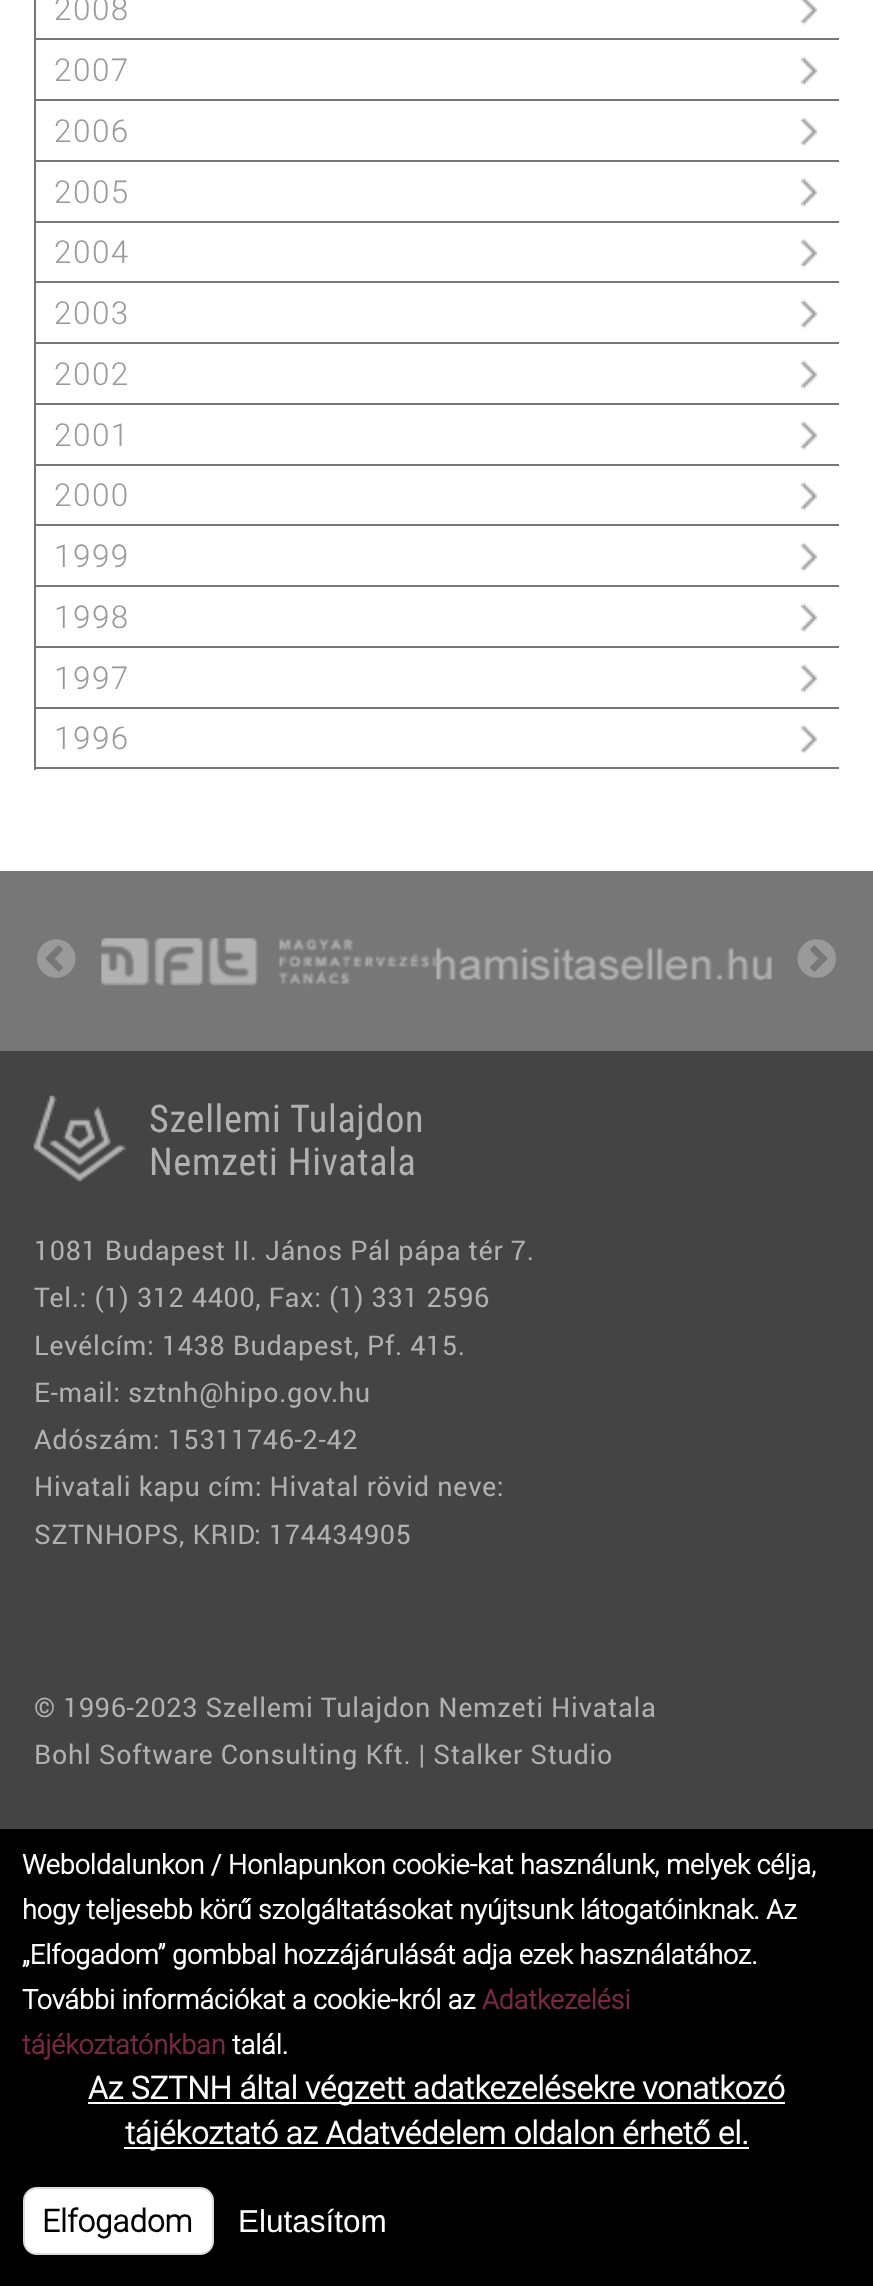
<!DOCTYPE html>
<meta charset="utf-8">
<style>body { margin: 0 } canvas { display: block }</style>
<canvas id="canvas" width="873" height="2286"></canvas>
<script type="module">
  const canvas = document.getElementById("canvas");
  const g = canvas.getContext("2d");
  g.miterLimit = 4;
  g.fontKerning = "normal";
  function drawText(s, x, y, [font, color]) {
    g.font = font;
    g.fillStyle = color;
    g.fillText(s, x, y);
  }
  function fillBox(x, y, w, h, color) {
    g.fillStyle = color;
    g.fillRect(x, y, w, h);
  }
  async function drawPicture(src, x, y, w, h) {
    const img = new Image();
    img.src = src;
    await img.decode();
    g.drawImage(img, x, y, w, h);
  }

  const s1 = ["300 31.5px Roboto", "#999999"];
  const s2 = ["38.25px Roboto Condensed", "#B1B1B1"];
  const s3 = ["27px Roboto", "#B1B1B1"];
  const s4 = ["bold 27px Roboto", "#FFFFFF"];
  const s5 = ["bold 27px Roboto", "#782746"];
  const s6 = ["bold 31.5px Roboto", "#FFFFFF"];
  const s7 = ["bold 31.5px Roboto", "#000000"];
  const s8 = ["31.5px Liberation Sans", "#FFFFFF"];

  fillBox(0, 0, 873, 2286, "#FFFFFF");
  fillBox(34, 0, 2, 770, "#777777");
  await drawPicture("pic1.png", 801, 0, 16, 25);
  fillBox(36, 38, 803, 2, "#777777");
  g.letterSpacing = "1.5px";
  drawText("2008", 54, 20, s1);
  await drawPicture("pic2.png", 801, 56, 16, 30);
  fillBox(36, 99, 803, 2, "#777777");
  drawText("2007", 54, 81, s1);
  await drawPicture("pic3.png", 801, 117, 16, 30);
  fillBox(36, 160, 803, 2, "#777777");
  drawText("2006", 54, 142, s1);
  await drawPicture("pic4.png", 801, 177, 16, 30);
  fillBox(36, 221, 803, 2, "#777777");
  drawText("2005", 54, 203, s1);
  await drawPicture("pic5.png", 801, 238, 16, 30);
  fillBox(36, 281, 803, 2, "#777777");
  drawText("2004", 54, 263, s1);
  await drawPicture("pic2.png", 801, 299, 16, 30);
  fillBox(36, 342, 803, 2, "#777777");
  drawText("2003", 54, 324, s1);
  await drawPicture("pic3.png", 801, 360, 16, 30);
  fillBox(36, 403, 803, 2, "#777777");
  drawText("2002", 54, 385, s1);
  await drawPicture("pic4.png", 801, 420, 16, 30);
  fillBox(36, 464, 803, 2, "#777777");
  drawText("2001", 54, 446, s1);
  await drawPicture("pic5.png", 801, 481, 16, 30);
  fillBox(36, 524, 803, 2, "#777777");
  drawText("2000", 54, 506, s1);
  await drawPicture("pic2.png", 801, 542, 16, 30);
  fillBox(36, 585, 803, 2, "#777777");
  drawText("1999", 54, 567, s1);
  await drawPicture("pic3.png", 801, 603, 16, 30);
  fillBox(36, 646, 803, 2, "#777777");
  drawText("1998", 54, 628, s1);
  await drawPicture("pic4.png", 801, 663, 16, 30);
  fillBox(36, 707, 803, 2, "#777777");
  drawText("1997", 54, 689, s1);
  await drawPicture("pic5.png", 801, 724, 16, 30);
  fillBox(36, 767, 803, 2, "#777777");
  drawText("1996", 54, 749, s1);
  fillBox(0, 871, 873, 180, "#777777");
  await drawPicture("pic6.png", 37, 939, 39, 39);
  await drawPicture("pic7.png", 101, 938, 336, 48);
  await drawPicture("pic8.png", 436, 947, 336, 34);
  await drawPicture("pic9.png", 797, 939, 39, 39);
  fillBox(0, 1051, 873, 778, "#444444");
  await drawPicture("pic10.png", 33, 1095, 93, 87);
  g.letterSpacing = "0.65px";
  drawText("Szellemi Tulajdon", 149, 1132, s2);
  drawText("Nemzeti Hivatala", 149, 1175, s2);
  drawText("1081 Budapest II. János Pál pápa tér 7.", 34, 1260, s3);
  drawText("Tel.: (1) 312 4400, Fax: (1) 331 2596", 34, 1307, s3);
  drawText("Levélcím: 1438 Budapest, Pf. 415.", 34, 1355, s3);
  drawText("E-mail: sztnh@hipo.gov.hu", 34, 1402, s3);
  drawText("Adószám: 15311746-2-42", 34, 1449, s3);
  drawText("Hivatali kapu cím: Hivatal rövid neve:", 34, 1496, s3);
  drawText("SZTNHOPS, KRID: 174434905", 34, 1544, s3);
  drawText("© 1996-2023 Szellemi Tulajdon Nemzeti Hivatala", 34, 1717, s3);
  drawText("Bohl Software Consulting Kft. | Stalker Studio", 34, 1764, s3);
  fillBox(0, 1829, 873, 457, "#000000");
  g.letterSpacing = "0px";
  drawText("Weboldalunkon / Honlapunkon cookie-kat használunk, melyek célja,", 22, 1874, s4);
  drawText("hogy teljesebb körű szolgáltatásokat nyújtsunk látogatóinknak. Az", 22, 1919, s4);
  drawText("„Elfogadom” gombbal hozzájárulását adja ezek használatához.", 22, 1964, s4);
  drawText("További információkat a cookie-król az", 22, 2009, s4);
  drawText("Adatkezelési", 482, 2009, s5);
  drawText("tájékoztatónkban", 22, 2054, s5);
  drawText("talál.", 232, 2054, s4);
  fillBox(88, 2102, 697, 2, "#FFFFFF");
  drawText("Az SZTNH által végzett adatkezelésekre vonatkozó", 88, 2099, s6);
  fillBox(124, 2147, 625, 2, "#FFFFFF");
  drawText("tájékoztató az Adatvédelem oldalon érhető el.", 125, 2144, s6);
  g.beginPath();
  g.roundRect(24, 2188, 189, 66, 13);
  g.fill();
  g.strokeStyle = "#DCDCDC";
  g.lineWidth = 2;
  g.stroke();
  drawText("Elfogadom", 42, 2232, s7);
  drawText("Elutasítom", 238, 2232, s8);
</script>
